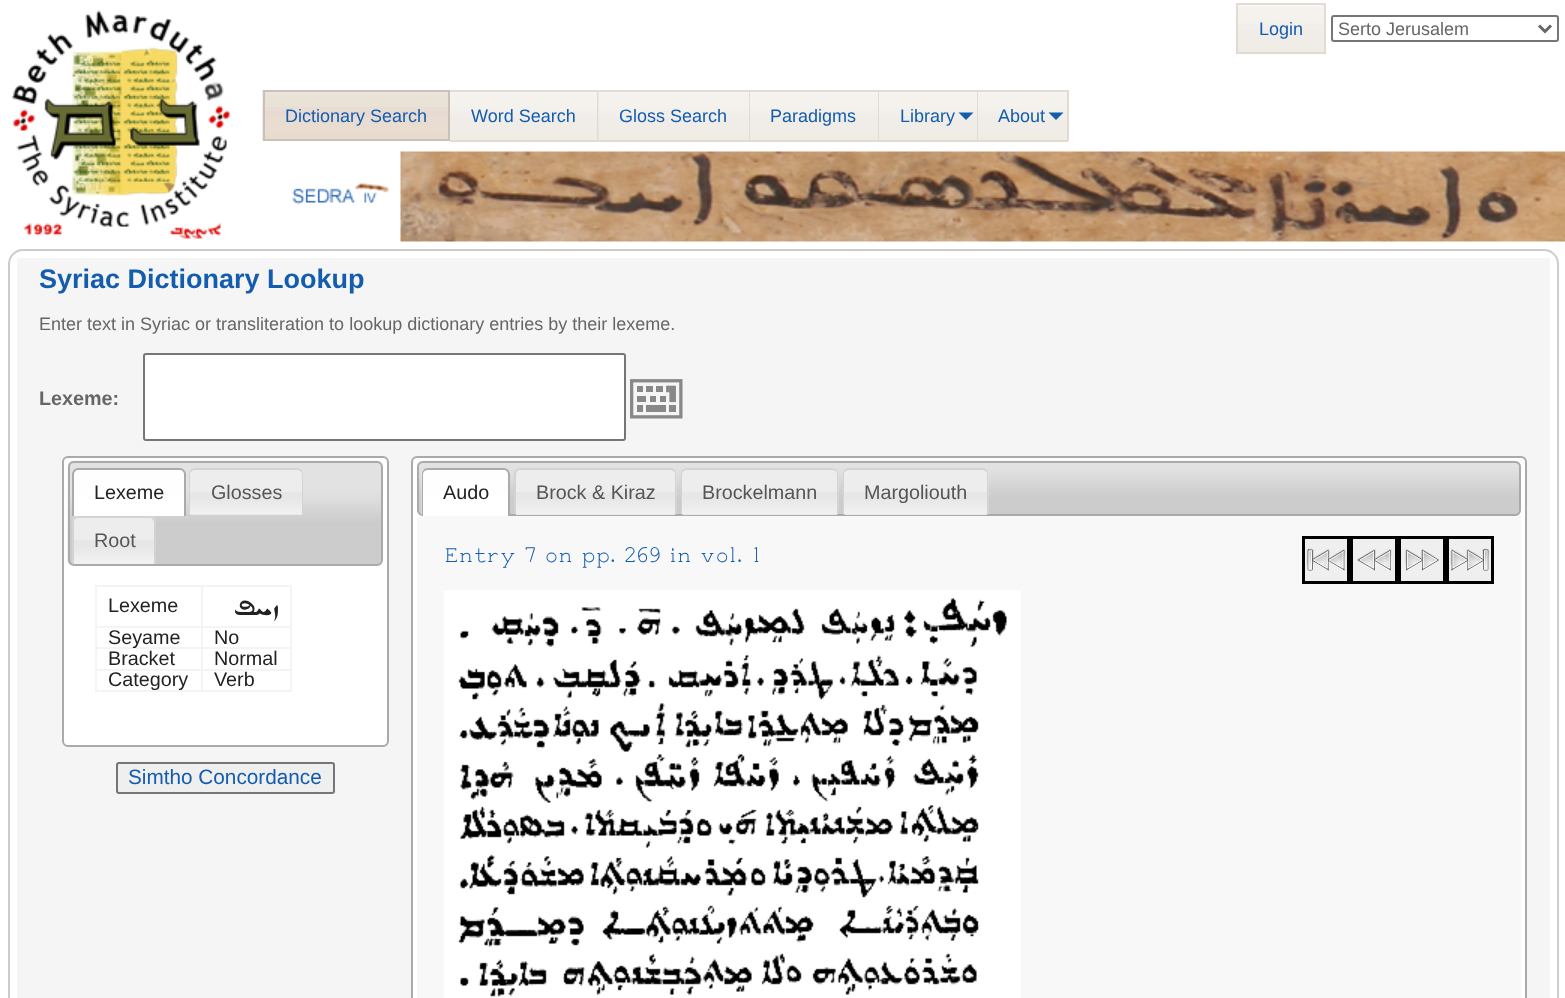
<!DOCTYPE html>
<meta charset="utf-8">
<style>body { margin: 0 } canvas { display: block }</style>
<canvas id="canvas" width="1565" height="998"></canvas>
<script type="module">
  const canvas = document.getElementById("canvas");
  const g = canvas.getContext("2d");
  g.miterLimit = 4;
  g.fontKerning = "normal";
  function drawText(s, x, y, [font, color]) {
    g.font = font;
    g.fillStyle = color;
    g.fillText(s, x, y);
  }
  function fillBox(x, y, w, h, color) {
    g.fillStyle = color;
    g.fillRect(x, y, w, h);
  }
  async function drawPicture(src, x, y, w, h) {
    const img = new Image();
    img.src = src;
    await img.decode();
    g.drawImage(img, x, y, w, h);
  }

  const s1 = ["18px Liberation Sans", "#135CAE"];
  const s2 = ["18px Liberation Sans", "#666666"];
  const s3 = ["bold 27px Liberation Sans", "#135CAE"];
  const s4 = ["bold 19.75px Liberation Sans", "#666666"];
  const s5 = ["19.75px Liberation Sans", "#222222"];
  const s6 = ["19.75px Liberation Sans", "#555555"];
  const s7 = ["40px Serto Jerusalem", "#222222"];
  const s8 = ["20.75px Liberation Sans", "#135CAE"];
  const s9 = ["bold 24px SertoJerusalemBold", "#135CAE"];

  fillBox(0, 0, 1565, 998, "#FFFFFF");
  await drawPicture("pic1.png", 11, 10, 219, 229);
  await drawPicture("pic2.png", 1238, 5, 86, 47);
  g.strokeStyle = "#E3DAD1";
  g.lineWidth = 2;
  g.strokeRect(1237, 4, 88, 49);
  drawText("Login", 1259, 35, s1);
  g.beginPath();
  g.roundRect(1332, 16, 226, 25, 2);
  g.strokeStyle = "#767676";
  g.stroke();
  g.beginPath();
  g.moveTo(1539, 25.5);
  g.lineTo(1545, 31.5);
  g.lineTo(1551, 25.5);
  g.strokeStyle = "#666666";
  g.lineWidth = 3;
  g.stroke();
  drawText("Serto Jerusalem", 1338, 35, s2);
  await drawPicture("pic3.png", 262, 90, 186, 51);
  g.strokeStyle = "#CBC0B7";
  g.lineWidth = 2;
  g.strokeRect(264, 91, 185, 49);
  drawText("Dictionary Search", 285, 122, s1);
  await drawPicture("pic4.png", 450, 92, 147, 48);
  fillBox(450, 90, 149, 2, "#E3DAD1");
  fillBox(597, 90, 2, 51, "#E3DAD1");
  fillBox(450, 140, 149, 2, "#E3DAD1");
  drawText("Word Search", 471, 122, s1);
  await drawPicture("pic5.png", 598, 90, 151, 51);
  fillBox(599, 90, 469, 2, "#E3DAD1");
  fillBox(749, 90, 1, 51, "#E3DAD1");
  fillBox(599, 140, 151, 2, "#E3DAD1");
  drawText("Gloss Search", 619, 122, s1);
  await drawPicture("pic6.png", 750, 92, 128, 48);
  fillBox(878, 90, 1, 51, "#E3DAD1");
  fillBox(750, 140, 129, 2, "#E3DAD1");
  drawText("Paradigms", 770, 122, s1);
  await drawPicture("pic7.png", 879, 92, 98, 48);
  fillBox(977, 90, 1, 51, "#E3DAD1");
  fillBox(879, 140, 99, 2, "#E3DAD1");
  drawText("Library", 900, 122, s1);
  g.beginPath();
  g.moveTo(958.5, 112.5);
  g.lineTo(973.5, 112.5);
  g.lineTo(966, 120);
  g.closePath();
  g.fill();
  await drawPicture("pic8.png", 978, 92, 89, 48);
  fillBox(1067, 90, 2, 51, "#E3DAD1");
  fillBox(978, 140, 90, 2, "#E3DAD1");
  drawText("About", 998, 122, s1);
  g.beginPath();
  g.moveTo(1048.5, 112.5);
  g.lineTo(1063.5, 112.5);
  g.lineTo(1056, 120);
  g.closePath();
  g.fill();
  await drawPicture("pic9.png", 292, 151, 1273, 91);
  g.beginPath();
  g.roundRect(9, 250, 1549, 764, 14);
  g.strokeStyle = "#CCCCCC";
  g.stroke();
  fillBox(17, 258, 1533, 740, "#F5F5F5");
  drawText("Syriac Dictionary Lookup", 39, 288, s3);
  drawText("Enter text in Syriac or transliteration to lookup dictionary entries by their lexeme.", 39, 330, s2);
  drawText("Lexeme:", 39, 405, s4);
  g.fillStyle = "#FFFFFF";
  g.beginPath();
  g.roundRect(144, 354, 481, 86, 2);
  g.fill();
  g.strokeStyle = "#767676";
  g.stroke();
  await drawPicture("pic10.png", 630, 379, 53, 40);
  g.beginPath();
  g.roundRect(63, 457, 325, 289, 5);
  g.fill();
  g.strokeStyle = "#AAAAAA";
  g.stroke();
  await drawPicture("pic11.png", 67, 460, 316, 105);
  g.beginPath();
  g.roundRect(69, 462, 313, 103, 5);
  g.stroke();
  await drawPicture("pic12.png", 72, 468, 114, 48);
  g.fillStyle = "#AAAAAA";
  g.beginPath();
  g.moveTo(78, 468);
  g.lineTo(180, 468);
  g.bezierCurveTo(183, 468, 186, 471, 186, 474);
  g.lineTo(186, 516);
  g.lineTo(72, 516);
  g.lineTo(72, 474);
  g.bezierCurveTo(72, 471, 75, 468, 78, 468);
  g.closePath();
  g.moveTo(78, 470);
  g.lineTo(180, 470);
  g.bezierCurveTo(182, 470, 184, 472, 184, 474);
  g.lineTo(184, 516);
  g.lineTo(74, 516);
  g.lineTo(74, 474);
  g.bezierCurveTo(74, 472, 76, 470, 78, 470);
  g.closePath();
  g.fill("evenodd");
  drawText("Lexeme", 94, 499, s5);
  g.fillStyle = "#E6E6E6";
  g.beginPath();
  g.roundRect(191, 470, 111, 45, [5, 5, 0, 0]);
  g.fill();
  await drawPicture("pic13.png", 189, 468, 114, 47);
  g.fillStyle = "#D3D3D3";
  g.beginPath();
  g.moveTo(195, 468);
  g.lineTo(297, 468);
  g.bezierCurveTo(300, 468, 303, 471, 303, 474);
  g.lineTo(303, 514);
  g.lineTo(189, 514);
  g.lineTo(189, 474);
  g.bezierCurveTo(189, 471, 192, 468, 195, 468);
  g.closePath();
  g.moveTo(195, 470);
  g.lineTo(297, 470);
  g.bezierCurveTo(299, 470, 302, 472, 302, 474);
  g.lineTo(302, 514);
  g.lineTo(190, 514);
  g.lineTo(190, 474);
  g.bezierCurveTo(190, 472, 193, 470, 195, 470);
  g.closePath();
  g.fill("evenodd");
  drawText("Glosses", 211, 499, s6);
  await drawPicture("pic14.png", 72, 516, 84, 48);
  g.fillStyle = "#D3D3D3";
  g.beginPath();
  g.moveTo(78, 516);
  g.lineTo(150, 516);
  g.bezierCurveTo(153, 516, 156, 519, 156, 522);
  g.lineTo(156, 564);
  g.lineTo(72, 564);
  g.lineTo(72, 522);
  g.bezierCurveTo(72, 519, 75, 516, 78, 516);
  g.closePath();
  g.moveTo(78, 518);
  g.lineTo(150, 518);
  g.bezierCurveTo(152, 518, 154, 520, 154, 522);
  g.lineTo(154, 564);
  g.lineTo(74, 564);
  g.lineTo(74, 522);
  g.bezierCurveTo(74, 520, 76, 518, 78, 518);
  g.closePath();
  g.fill("evenodd");
  drawText("Root", 94, 547, s6);
  fillBox(95, 585, 196, 2, "#F4F4F4");
  fillBox(290, 585, 2, 107, "#F4F4F4");
  fillBox(95, 690, 196, 2, "#F4F4F4");
  fillBox(95, 585, 2, 107, "#F4F4F4");
  drawText("Lexeme", 108, 612, s5);
  fillBox(201, 626, 90, 2, "#F4F4F4");
  fillBox(201, 647, 90, 2, "#F4F4F4");
  fillBox(201, 669, 90, 2, "#F4F4F4");
  fillBox(201, 669, 2, 23, "#F4F4F4");
  fillBox(95, 669, 108, 2, "#F4F4F4");
  fillBox(201, 647, 2, 24, "#F4F4F4");
  fillBox(95, 647, 108, 2, "#F4F4F4");
  fillBox(201, 626, 2, 22, "#F4F4F4");
  fillBox(95, 626, 108, 2, "#F4F4F4");
  fillBox(201, 585, 2, 42, "#F4F4F4");
  g.direction = "rtl";
  drawText("ܙܚܦ", 278, 615, s7);
  g.direction = "ltr";
  drawText("Seyame", 108, 644, s5);
  drawText("No", 214, 644, s5);
  drawText("Bracket", 108, 665, s5);
  drawText("Normal", 214, 665, s5);
  drawText("Category", 108, 686, s5);
  drawText("Verb", 214, 686, s5);
  g.fillStyle = "#EFEFEF";
  g.beginPath();
  g.roundRect(117, 763, 217, 30, 2);
  g.fill();
  g.strokeStyle = "#767676";
  g.stroke();
  drawText("Simtho Concordance", 128, 784, s8);
  g.fillStyle = "#FFFFFF";
  g.beginPath();
  g.roundRect(412, 457, 1114, 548, 5);
  g.fill();
  g.strokeStyle = "#AAAAAA";
  g.stroke();
  await drawPicture("pic15.png", 417, 460, 1104, 56);
  g.beginPath();
  g.roundRect(418, 462, 1102, 53, 5);
  g.stroke();
  await drawPicture("pic16.png", 421, 468, 89, 48);
  g.fillStyle = "#AAAAAA";
  g.beginPath();
  g.moveTo(428, 468);
  g.lineTo(504, 468);
  g.bezierCurveTo(507, 468, 510, 471, 510, 474);
  g.lineTo(510, 516);
  g.lineTo(422, 516);
  g.lineTo(422, 474);
  g.bezierCurveTo(422, 471, 424, 468, 428, 468);
  g.closePath();
  g.moveTo(428, 470);
  g.lineTo(504, 470);
  g.bezierCurveTo(506, 470, 508, 472, 508, 474);
  g.lineTo(508, 516);
  g.lineTo(423, 516);
  g.lineTo(423, 474);
  g.bezierCurveTo(423, 472, 425, 470, 428, 470);
  g.closePath();
  g.fill("evenodd");
  drawText("Audo", 443, 499, s5);
  fillBox(516, 514, 159, 1, "#E6E6E6");
  await drawPicture("pic17.png", 514, 468, 163, 47);
  g.fillStyle = "#D3D3D3";
  g.beginPath();
  g.moveTo(520, 468);
  g.lineTo(670, 468);
  g.bezierCurveTo(674, 468, 676, 471, 676, 474);
  g.lineTo(676, 514);
  g.lineTo(514, 514);
  g.lineTo(514, 474);
  g.bezierCurveTo(514, 471, 517, 468, 520, 468);
  g.closePath();
  g.moveTo(520, 470);
  g.lineTo(670, 470);
  g.bezierCurveTo(673, 470, 675, 472, 675, 474);
  g.lineTo(675, 514);
  g.lineTo(516, 514);
  g.lineTo(516, 474);
  g.bezierCurveTo(516, 472, 518, 470, 520, 470);
  g.closePath();
  g.fill("evenodd");
  drawText("Brock & Kiraz", 536, 499, s6);
  fillBox(683, 514, 154, 1, "#E6E6E6");
  await drawPicture("pic18.png", 681, 468, 158, 47);
  g.fillStyle = "#D3D3D3";
  g.beginPath();
  g.moveTo(687, 468);
  g.lineTo(832, 468);
  g.bezierCurveTo(836, 468, 838, 471, 838, 474);
  g.lineTo(838, 514);
  g.lineTo(681, 514);
  g.lineTo(681, 474);
  g.bezierCurveTo(681, 471, 684, 468, 687, 468);
  g.closePath();
  g.moveTo(687, 470);
  g.lineTo(832, 470);
  g.bezierCurveTo(835, 470, 837, 472, 837, 474);
  g.lineTo(837, 514);
  g.lineTo(682, 514);
  g.lineTo(682, 474);
  g.bezierCurveTo(682, 472, 685, 470, 687, 470);
  g.closePath();
  g.fill("evenodd");
  drawText("Brockelmann", 702, 499, s6);
  fillBox(845, 514, 142, 1, "#E6E6E6");
  await drawPicture("pic19.png", 843, 468, 146, 47);
  g.fillStyle = "#D3D3D3";
  g.beginPath();
  g.moveTo(849, 468);
  g.lineTo(982, 468);
  g.bezierCurveTo(986, 468, 988, 471, 988, 474);
  g.lineTo(988, 514);
  g.lineTo(843, 514);
  g.lineTo(843, 474);
  g.bezierCurveTo(843, 471, 846, 468, 849, 468);
  g.closePath();
  g.moveTo(849, 470);
  g.lineTo(982, 470);
  g.bezierCurveTo(985, 470, 987, 472, 987, 474);
  g.lineTo(987, 514);
  g.lineTo(844, 514);
  g.lineTo(844, 474);
  g.bezierCurveTo(844, 472, 847, 470, 849, 470);
  g.closePath();
  g.fill("evenodd");
  drawText("Margoliouth", 864, 499, s6);
  fillBox(417, 516, 1104, 482, "#F8F8F8");
  drawText("Entry 7 on pp. 269 in vol. 1", 444, 562, s9);
  fillBox(1305, 539, 42, 42, "#EFEFEF");
  await drawPicture("pic20.png", 1306, 548, 40, 23);
  g.strokeStyle = "#000000";
  g.lineWidth = 3;
  g.strokeRect(1303.5, 537.5, 45, 45);
  fillBox(1353, 539, 42, 42, "#EFEFEF");
  await drawPicture("pic21.png", 1357, 549, 35, 22);
  g.strokeRect(1351.5, 537.5, 45, 45);
  fillBox(1401, 539, 42, 42, "#EFEFEF");
  await drawPicture("pic22.png", 1405, 549, 35, 22);
  g.strokeRect(1399.5, 537.5, 45, 45);
  fillBox(1449, 539, 42, 42, "#EFEFEF");
  await drawPicture("pic23.png", 1450, 548, 40, 23);
  g.strokeRect(1447.5, 537.5, 45, 45);
  await drawPicture("pic24.png", 444, 590, 577, 408);
</script>
